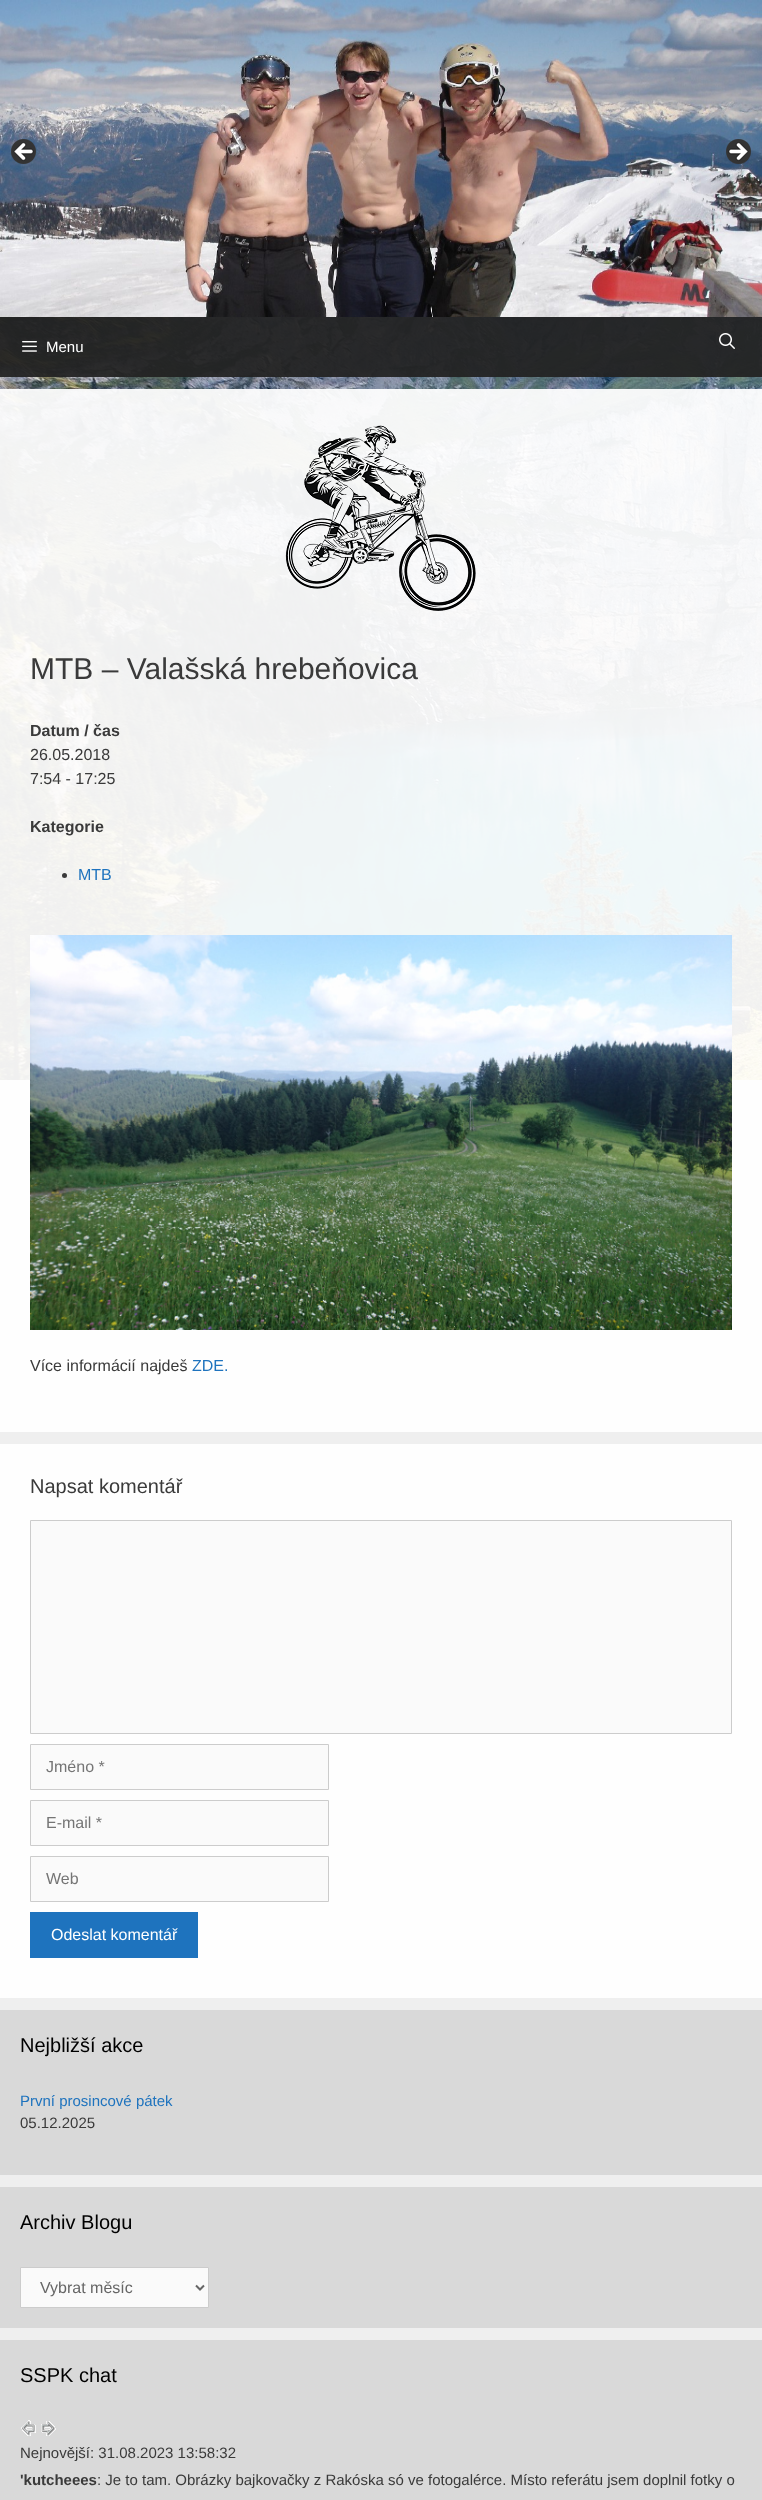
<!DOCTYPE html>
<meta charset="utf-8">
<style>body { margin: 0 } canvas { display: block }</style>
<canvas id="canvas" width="762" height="2500"></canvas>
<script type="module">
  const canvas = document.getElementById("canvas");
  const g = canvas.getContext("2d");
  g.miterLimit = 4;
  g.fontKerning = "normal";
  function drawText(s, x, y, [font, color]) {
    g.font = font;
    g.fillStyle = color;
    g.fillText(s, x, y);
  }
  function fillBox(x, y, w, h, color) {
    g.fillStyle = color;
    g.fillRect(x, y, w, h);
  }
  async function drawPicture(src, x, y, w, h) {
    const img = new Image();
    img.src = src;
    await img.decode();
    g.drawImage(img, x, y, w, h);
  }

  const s1 = ["15px Liberation Sans", "#FFFFFF"];
  const s2 = ["30px Liberation Sans", "#3A3A3A"];
  const s3 = ["bold 16px Liberation Sans", "#3A3A3A"];
  const s4 = ["16px Liberation Sans", "#3A3A3A"];
  const s5 = ["16px Liberation Sans", "#1E73BE"];
  const s6 = ["20px Liberation Sans", "#3A3A3A"];
  const s7 = ["16px Liberation Sans", "#757575"];
  const s8 = ["16px Liberation Sans", "#FFFFFF"];
  const s9 = ["20px Liberation Sans", "#000000"];
  const s10 = ["15px Liberation Sans", "#1E73BE"];
  const s11 = ["15px Liberation Sans", "#3A3A3A"];
  const s12 = ["16px Liberation Sans", "#666666"];
  const s13 = ["bold 15px Liberation Sans", "#3A3A3A"];

  fillBox(0, 0, 762, 2500, "#EFEFEF");
  await drawPicture("pic1.png", 0, 317, 762, 763);
  await drawPicture("pic2.png", 0, 0, 762, 317);
  await drawPicture("pic3.png", 11, 139, 25, 25);
  await drawPicture("pic4.png", 726, 139, 25, 25);
  fillBox(0, 317, 762, 60, "rgba(34, 34, 34, 0.94)");
  await drawPicture("pic5.png", 22, 341, 15, 11);
  drawText("Menu", 46, 352, s1);
  await drawPicture("pic6.png", 719, 333, 16, 16);
  fillBox(0, 389, 762, 1043, "rgba(255, 255, 255, 0.94)");
  await drawPicture("pic7.png", 285, 425, 191, 186);
  drawText("MTB – Valašská hrebeňovica", 30, 679, s2);
  drawText("Datum / čas", 30, 736, s3);
  drawText("26.05.2018", 30, 760, s4);
  drawText("7:54 - 17:25", 30, 784, s4);
  drawText("Kategorie", 30, 832, s3);
  g.beginPath();
  g.arc(64.5, 875.5, 2.5, 0, Math.PI * 2);
  g.fill();
  drawText("MTB", 78, 880, s5);
  await drawPicture("pic8.png", 30, 935, 702, 395);
  drawText("Více informácií najdeš", 30, 1371, s4);
  drawText("ZDE.", 192, 1371, s5);
  fillBox(0, 1444, 762, 554, "#FEFEFE");
  drawText("Napsat komentář", 30, 1493, s6);
  g.fillStyle = "#FAFAFA";
  g.beginPath();
  g.rect(30.5, 1520.5, 701, 213);
  g.fill();
  g.strokeStyle = "#CCCCCC";
  g.stroke();
  g.beginPath();
  g.rect(30.5, 1744.5, 298, 45);
  g.fill();
  g.stroke();
  drawText("Jméno *", 46, 1772, s7);
  g.fillStyle = "#FAFAFA";
  g.beginPath();
  g.rect(30.5, 1800.5, 298, 45);
  g.fill();
  g.stroke();
  drawText("E-mail *", 46, 1828, s7);
  g.fillStyle = "#FAFAFA";
  g.beginPath();
  g.rect(30.5, 1856.5, 298, 45);
  g.fill();
  g.stroke();
  drawText("Web", 46, 1884, s7);
  fillBox(30, 1912, 168, 46, "#1E73BE");
  drawText("Odeslat komentář", 51, 1940, s8);
  fillBox(0, 2010, 762, 165, "#D9D9D9");
  drawText("Nejbližší akce", 20, 2052, s9);
  drawText("První prosincové pátek", 20, 2106, s10);
  drawText("05.12.2025", 20, 2128, s11);
  fillBox(0, 2187, 762, 141, "#D9D9D9");
  drawText("Archiv Blogu", 20, 2229, s9);
  g.fillStyle = "#FAFAFA";
  g.beginPath();
  g.rect(20.5, 2267.5, 188, 40);
  g.fill();
  g.stroke();
  g.beginPath();
  g.moveTo(196, 2285.5);
  g.lineTo(200, 2289.5);
  g.lineTo(204, 2285.5);
  g.strokeStyle = "#666666";
  g.lineWidth = 2;
  g.stroke();
  drawText("Vybrat měsíc", 40, 2293, s12);
  fillBox(0, 2340, 762, 160, "#D9D9D9");
  drawText("SSPK chat", 20, 2382, s9);
  await drawPicture("pic9.png", 21, 2420, 15, 16);
  await drawPicture("pic10.png", 41, 2421, 15, 15);
  drawText("Nejnovější: 31.08.2023 13:58:32", 20, 2458, s11);
  drawText("'kutcheees", 20, 2485, s13);
  drawText(": Je to tam. Obrázky bajkovačky z Rakóska só ve fotogalérce. Místo referátu jsem doplnil fotky o", 97, 2485, s11);
</script>
